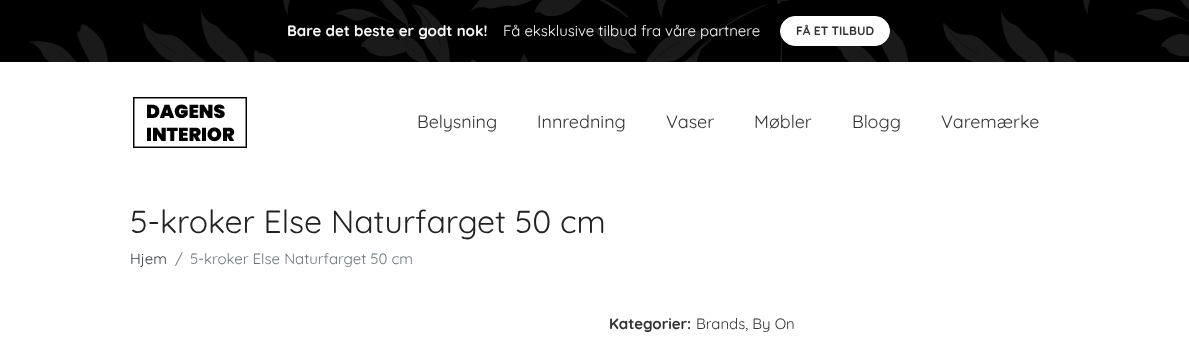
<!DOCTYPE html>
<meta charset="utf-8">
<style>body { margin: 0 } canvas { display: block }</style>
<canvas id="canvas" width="1189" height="351"></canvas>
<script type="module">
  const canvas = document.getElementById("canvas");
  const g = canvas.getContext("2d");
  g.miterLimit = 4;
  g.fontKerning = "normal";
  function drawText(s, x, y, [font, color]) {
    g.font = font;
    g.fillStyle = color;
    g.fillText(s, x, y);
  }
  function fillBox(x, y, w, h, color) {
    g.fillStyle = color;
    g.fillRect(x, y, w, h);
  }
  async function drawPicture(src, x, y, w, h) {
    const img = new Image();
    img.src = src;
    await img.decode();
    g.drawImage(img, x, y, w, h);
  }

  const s1 = ["bold 15px Quicksand", "#F8F9FA"];
  const s2 = ["15px Quicksand", "#F8F9FA"];
  const s3 = ["bold 12px Quicksand", "#333333"];
  const s4 = ["18px Quicksand", "#333333"];
  const s5 = ["32px Quicksand", "#222222"];
  const s6 = ["15px Quicksand", "#343A40"];
  const s7 = ["15px Quicksand", "#6C757D"];
  const s8 = ["bold 15px Quicksand", "#333333"];
  const s9 = ["15px Quicksand", "#333333"];

  fillBox(0, 0, 1189, 351, "#FFFFFF");
  fillBox(0, 0, 29, 62, "#000000");
  await drawPicture("pic1.png", 29, 0, 1160, 62);
  drawText("Bare det beste er godt nok!", 287, 36, s1);
  drawText("Få eksklusive tilbud fra våre partnere", 503, 36, s2);
  g.fillStyle = "#FFFFFF";
  g.beginPath();
  g.roundRect(780.5, 16.5, 109, 29, 14.5);
  g.fill();
  g.strokeStyle = "#FFFFFF";
  g.stroke();
  drawText("FÅ ET TILBUD", 796, 35, s3);
  await drawPicture("pic2.png", 133, 97, 114, 51);
  drawText("Belysning", 417, 128, s4);
  drawText("Innredning", 537, 128, s4);
  drawText("Vaser", 666, 128, s4);
  drawText("Møbler", 754, 128, s4);
  drawText("Blogg", 852, 128, s4);
  drawText("Varemærke", 941, 128, s4);
  drawText("5-kroker Else Naturfarget 50 cm", 130, 233, s5);
  drawText("Hjem", 130, 264, s6);
  drawText("/", 175, 264, s7);
  drawText("5-kroker Else Naturfarget 50 cm", 190, 264, s7);
  drawText("Kategorier:", 609, 329, s8);
  drawText("Brands, By On", 696, 329, s9);
</script>
